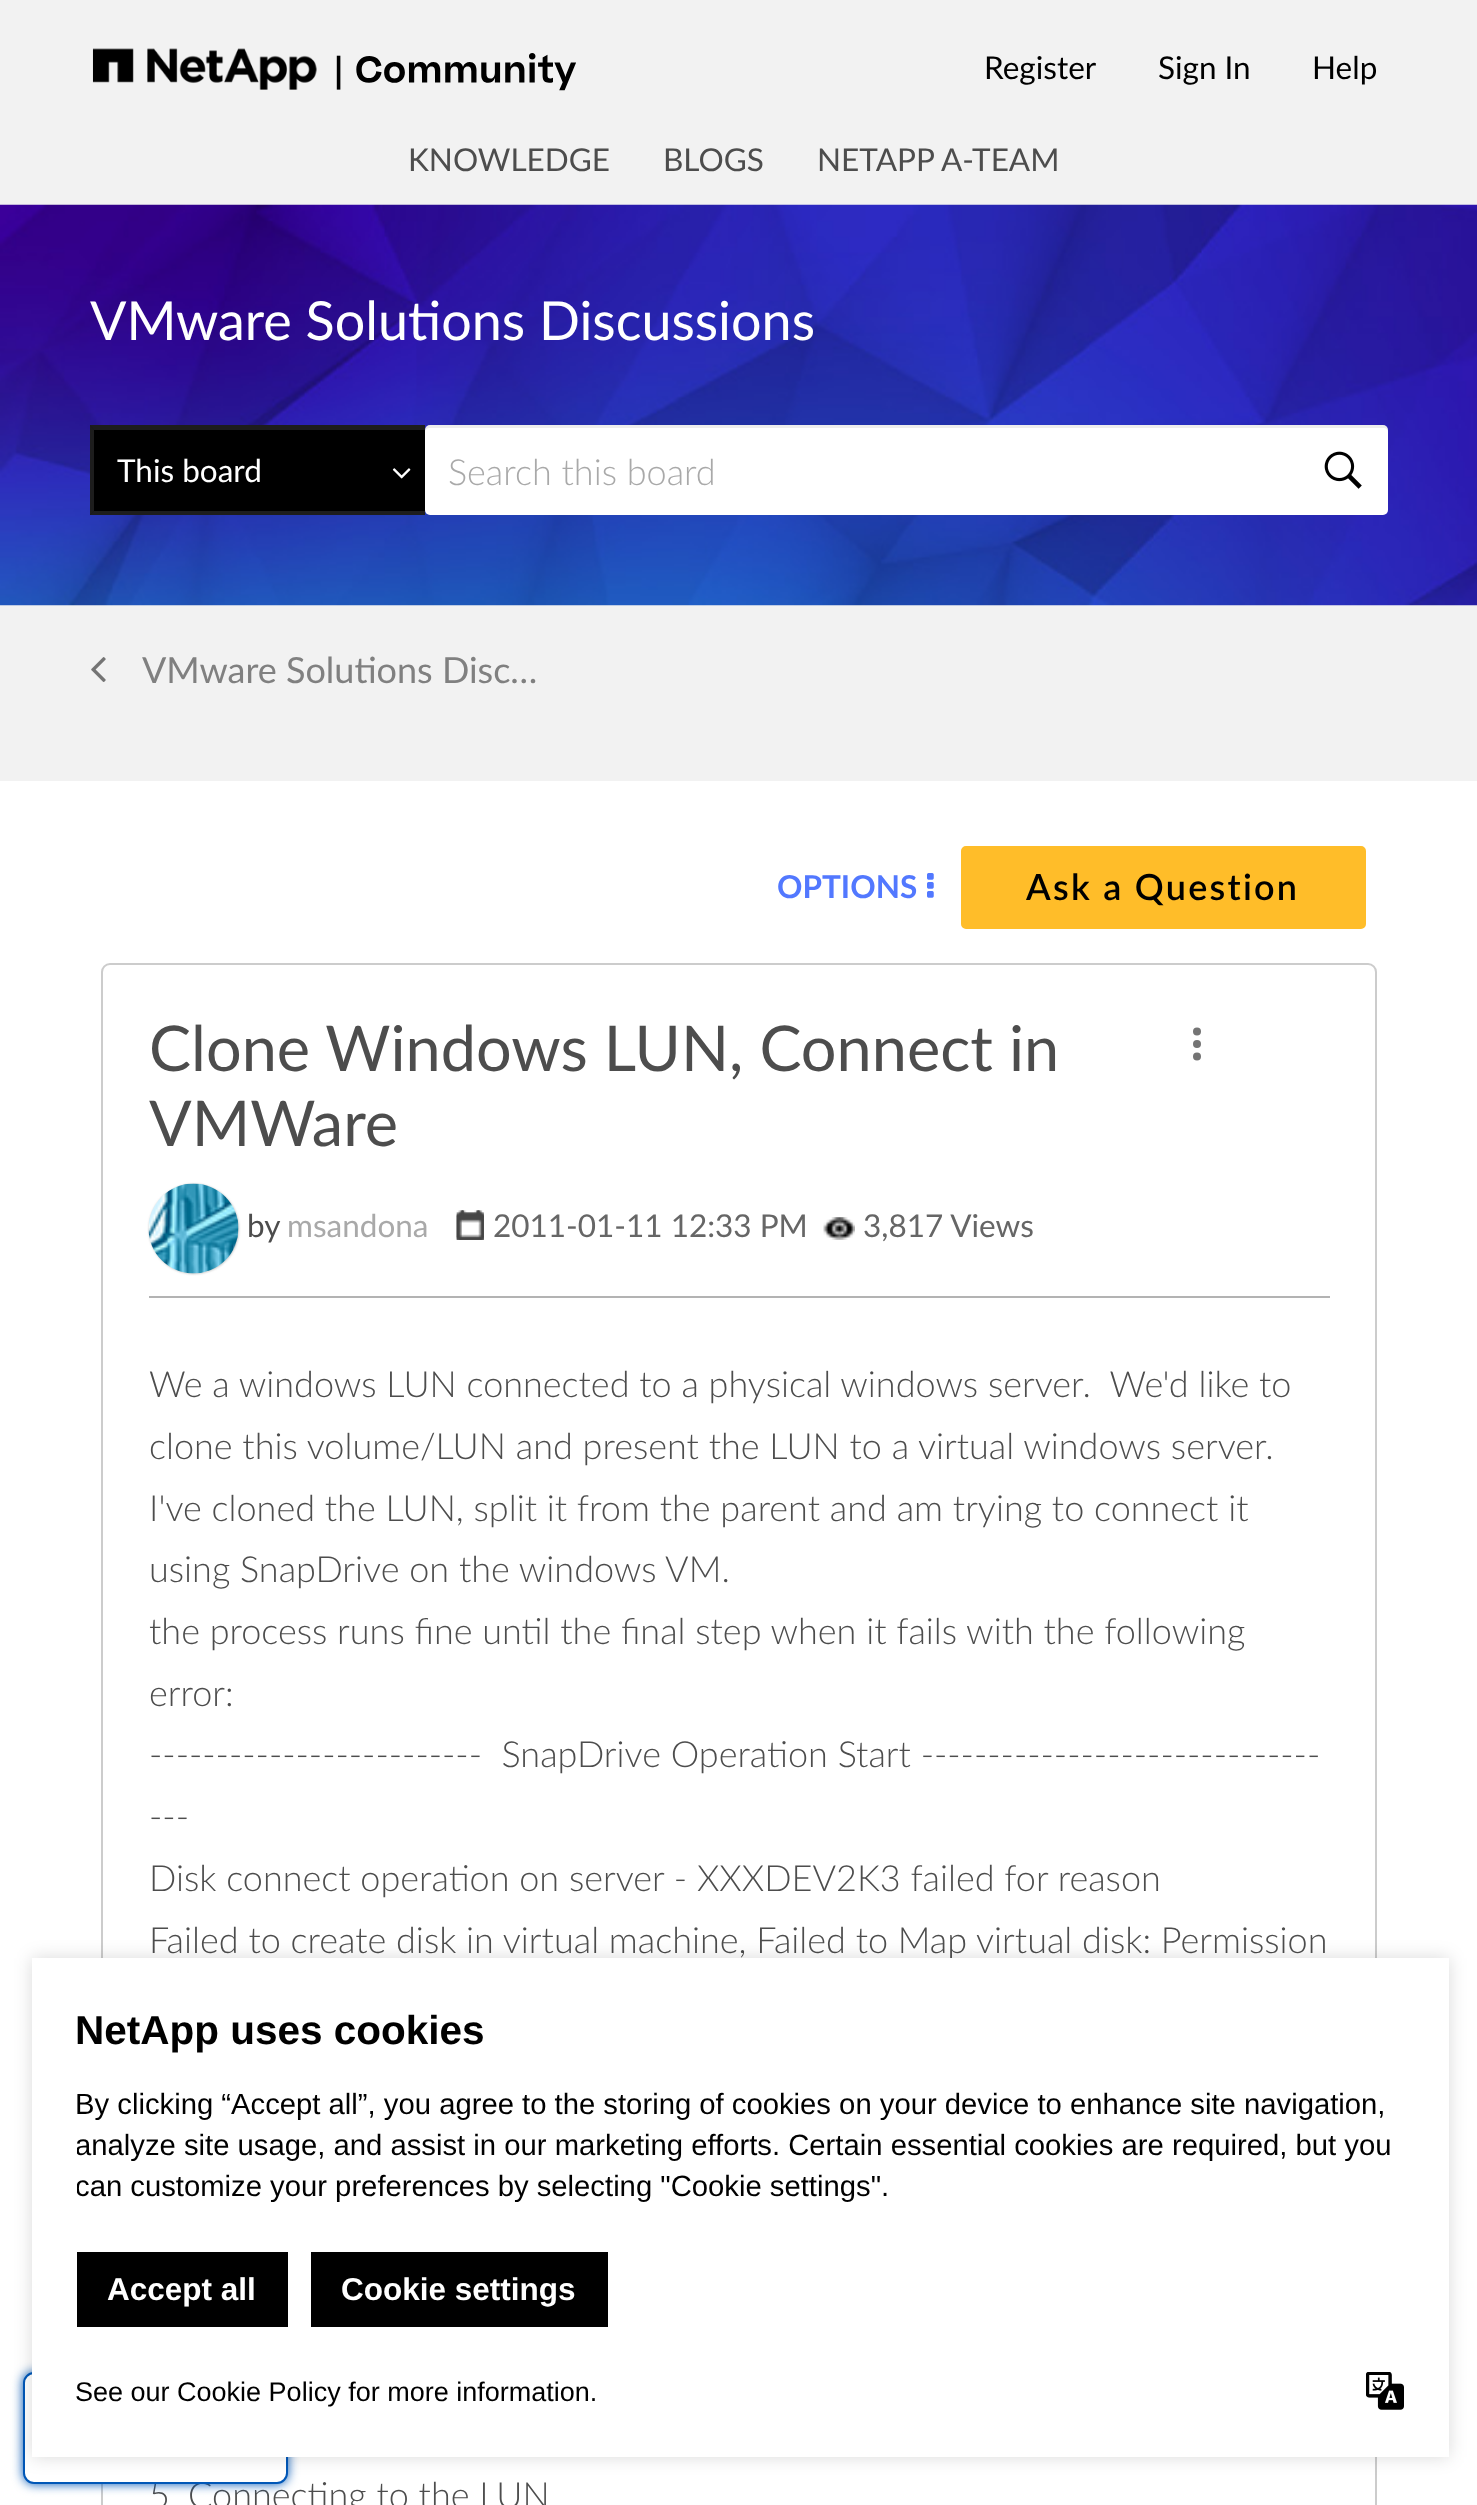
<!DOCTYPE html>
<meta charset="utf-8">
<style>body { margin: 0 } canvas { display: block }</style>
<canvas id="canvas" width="1477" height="2505"></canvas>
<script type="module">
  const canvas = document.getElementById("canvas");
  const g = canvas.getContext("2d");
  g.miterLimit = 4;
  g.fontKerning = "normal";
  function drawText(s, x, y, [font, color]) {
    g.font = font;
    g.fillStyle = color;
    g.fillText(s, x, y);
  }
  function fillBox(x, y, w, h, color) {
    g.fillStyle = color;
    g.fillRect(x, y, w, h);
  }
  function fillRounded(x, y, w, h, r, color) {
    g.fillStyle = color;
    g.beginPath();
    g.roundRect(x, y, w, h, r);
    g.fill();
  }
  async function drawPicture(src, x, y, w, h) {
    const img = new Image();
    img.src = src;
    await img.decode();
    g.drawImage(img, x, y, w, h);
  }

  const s1 = ["31.5px Lato", "#000000"];
  const s2 = ["31.5px Lato", "#4D4D4D"];
  const s3 = ["53.9px Lato", "#FFFFFF"];
  const s4 = ["31.5px Lato", "#FFFFFF"];
  const s5 = ["300 36px Lato", "#A9A9A9"];
  const s6 = ["36px Lato", "#808080"];
  const s7 = ["bold 31.5px Lato", "#5278FF"];
  const s8 = ["600 36px Lato", "#000000"];
  const s9 = ["63px Lato", "#4D4D4D"];
  const s10 = ["31.5px Lato", "#A9A9A9"];
  const s11 = ["31.5px Lato", "#666666"];
  const s12 = ["300 36px Lato", "#4D4D4D"];
  const s13 = ["bold 40.5px Liberation Sans", "#000000"];
  const s14 = ["29.25px Liberation Sans", "#000000"];
  const s15 = ["bold 31.5px Liberation Sans", "#FFFFFF"];
  const s16 = ["27px Liberation Sans", "#000000"];

  fillBox(0, 0, 1477, 2505, "#FFFFFF");
  fillBox(0, 0, 1477, 205, "#F2F2F2");
  await drawPicture("pic1.png", 92, 48, 484, 43);
  drawText("Register", 984, 79, s1);
  drawText("Sign In", 1158, 79, s1);
  drawText("Help", 1312, 79, s1);
  drawText("KNOWLEDGE", 408, 171, s2);
  drawText("BLOGS", 663, 171, s2);
  drawText("NETAPP A-TEAM", 817, 171, s2);
  fillBox(0, 605, 1477, 176, "#F2F2F2");
  await drawPicture("pic2.png", 0, 204, 1477, 402);
  drawText("VMware Solutions Discussions", 90, 340, s3);
  fillBox(90, 425, 335, 90, "#000000");
  g.fillStyle = "#1D1D1D";
  g.beginPath();
  g.moveTo(90, 425);
  g.lineTo(425, 425);
  g.lineTo(425, 430);
  g.lineTo(94, 430);
  g.closePath();
  g.fill();
  g.beginPath();
  g.moveTo(425, 515);
  g.lineTo(90, 515);
  g.lineTo(94, 511);
  g.lineTo(425, 511);
  g.closePath();
  g.fill();
  g.fillStyle = "rgba(196, 196, 196, 0.15)";
  g.beginPath();
  g.moveTo(90, 515);
  g.lineTo(90, 425);
  g.lineTo(94, 430);
  g.lineTo(94, 511);
  g.closePath();
  g.fill();
  drawText("This board", 117, 482, s4);
  await drawPicture("pic3.png", 392, 468, 19, 11);
  fillRounded(425, 425, 963, 90, 5, "#FFFFFF");
  g.fillStyle = "rgba(0, 0, 0, 0.07)";
  g.beginPath();
  g.moveTo(430, 428);
  g.lineTo(1384, 428);
  g.bezierCurveTo(1386, 428, 1388, 430, 1388, 432);
  g.lineTo(1388, 430);
  g.bezierCurveTo(1388, 427, 1386, 425, 1383, 425);
  g.lineTo(430, 425);
  g.bezierCurveTo(427, 425, 425, 427, 425, 430);
  g.lineTo(425, 432);
  g.bezierCurveTo(425, 430, 427, 428, 430, 428);
  g.closePath();
  g.fill();
  drawText("Search this board", 448, 485, s5);
  await drawPicture("pic4.png", 1324, 451, 38, 38);
  await drawPicture("pic5.png", 91, 657, 15, 25);
  drawText("VMware Solutions Disc…", 142, 683, s6);
  drawText("OPTIONS", 777, 898, s7);
  await drawPicture("pic6.png", 927, 873, 7, 25);
  g.fillStyle = "#FFBD29";
  g.beginPath();
  g.roundRect(963.5, 848.5, 400, 78, 2.5);
  g.fill();
  g.strokeStyle = "#FFBD29";
  g.lineWidth = 5;
  g.stroke();
  g.letterSpacing = "2.25px";
  drawText("Ask a Question", 1026, 900, s8);
  g.beginPath();
  g.roundRect(102, 964, 1274, 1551, 8);
  g.strokeStyle = "#CCCCCC";
  g.lineWidth = 2;
  g.stroke();
  fillBox(149, 1296, 1181, 2, "#B3B3B3");
  g.letterSpacing = "0px";
  drawText("Clone Windows LUN, Connect in", 149, 1071, s9);
  drawText("VMWare", 149, 1146, s9);
  g.fillStyle = "#C4C4C4";
  g.filter = "blur(1px)";
  g.beginPath();
  g.roundRect(149, 1184, 90, 90, 45);
  g.fill();
  g.filter = "none";
  await drawPicture("pic7.png", 148, 1183, 91, 91);
  drawText("by", 247, 1237, s2);
  drawText("msandona", 287, 1237, s10);
  await drawPicture("pic8.png", 456, 1210, 28, 30);
  await drawPicture("pic10.png", 456, 1210, 28, 30);
  await drawPicture("pic9.png", 456, 1210, 28, 30);
  drawText("2011-01-11 12:33 PM", 493, 1237, s11);
  await drawPicture("pic11.png", 823, 1217, 32, 23);
  drawText("3,817 Views", 863, 1237, s11);
  g.fillStyle = "#747474";
  g.beginPath();
  g.arc(1197, 1031.5, 4, 0, Math.PI * 2);
  g.fill();
  g.beginPath();
  g.arc(1197, 1044, 4, 0, Math.PI * 2);
  g.fill();
  g.beginPath();
  g.arc(1197, 1056.5, 4, 0, Math.PI * 2);
  g.fill();
  drawText("We a windows LUN connected to a physical windows server.  We'd like to", 149, 1397, s12);
  drawText("clone this volume/LUN and present the LUN to a virtual windows server.", 149, 1459, s12);
  drawText("I've cloned the LUN, split it from the parent and am trying to connect it", 149, 1521, s12);
  drawText("using SnapDrive on the windows VM.", 149, 1582, s12);
  drawText("the process runs fine until the final step when it fails with the following", 149, 1644, s12);
  drawText("error:", 149, 1706, s12);
  drawText("-------------------------  SnapDrive Operation Start ------------------------------", 149, 1767, s12);
  drawText("---", 149, 1829, s12);
  drawText("Disk connect operation on server - XXXDEV2K3 failed for reason", 149, 1891, s12);
  drawText("Failed to create disk in virtual machine, Failed to Map virtual disk: Permission", 149, 1953, s12);
  drawText("5. Connecting to the LUN", 149, 2508, s12);
  g.fillStyle = "#0057B7";
  g.filter = "blur(5.5px)";
  g.beginPath();
  g.roundRect(23, 2372, 265, 112, 11);
  g.fill();
  g.filter = "none";
  g.fillStyle = "#FFFFFF";
  g.beginPath();
  g.roundRect(24, 2373, 263, 110, 10);
  g.fill();
  g.strokeStyle = "#0057B7";
  g.stroke();
  g.fillStyle = "rgba(0, 0, 0, 0.15)";
  g.filter = "blur(9px)";
  g.beginPath();
  g.rect(32, 1958, 1417, 499);
  g.fill();
  g.filter = "none";
  fillBox(32, 1958, 1417, 499, "#FFFFFF");
  drawText("NetApp uses cookies", 75, 2044, s13);
  drawText("By clicking “Accept all”, you agree to the storing of cookies on your device to enhance site navigation,", 75, 2114, s14);
  g.save();
  g.beginPath();
  g.rect(77, 2003, 1327, 346);
  g.clip();
  drawText("analyze site usage, and assist in our marketing efforts. Certain essential cookies are required, but you", 75, 2155, s14);
  drawText("can customize your preferences by selecting \"Cookie settings\".", 75, 2196, s14);
  g.restore();
  fillBox(77, 2252, 211, 75, "#000000");
  drawText("Accept all", 107, 2300, s15);
  fillBox(311, 2252, 297, 75, "#000000");
  drawText("Cookie settings", 341, 2300, s15);
  drawText("See our Cookie Policy for more information.", 75, 2401, s16);
  await drawPicture("pic12.png", 1366, 2372, 38, 38);
</script>
